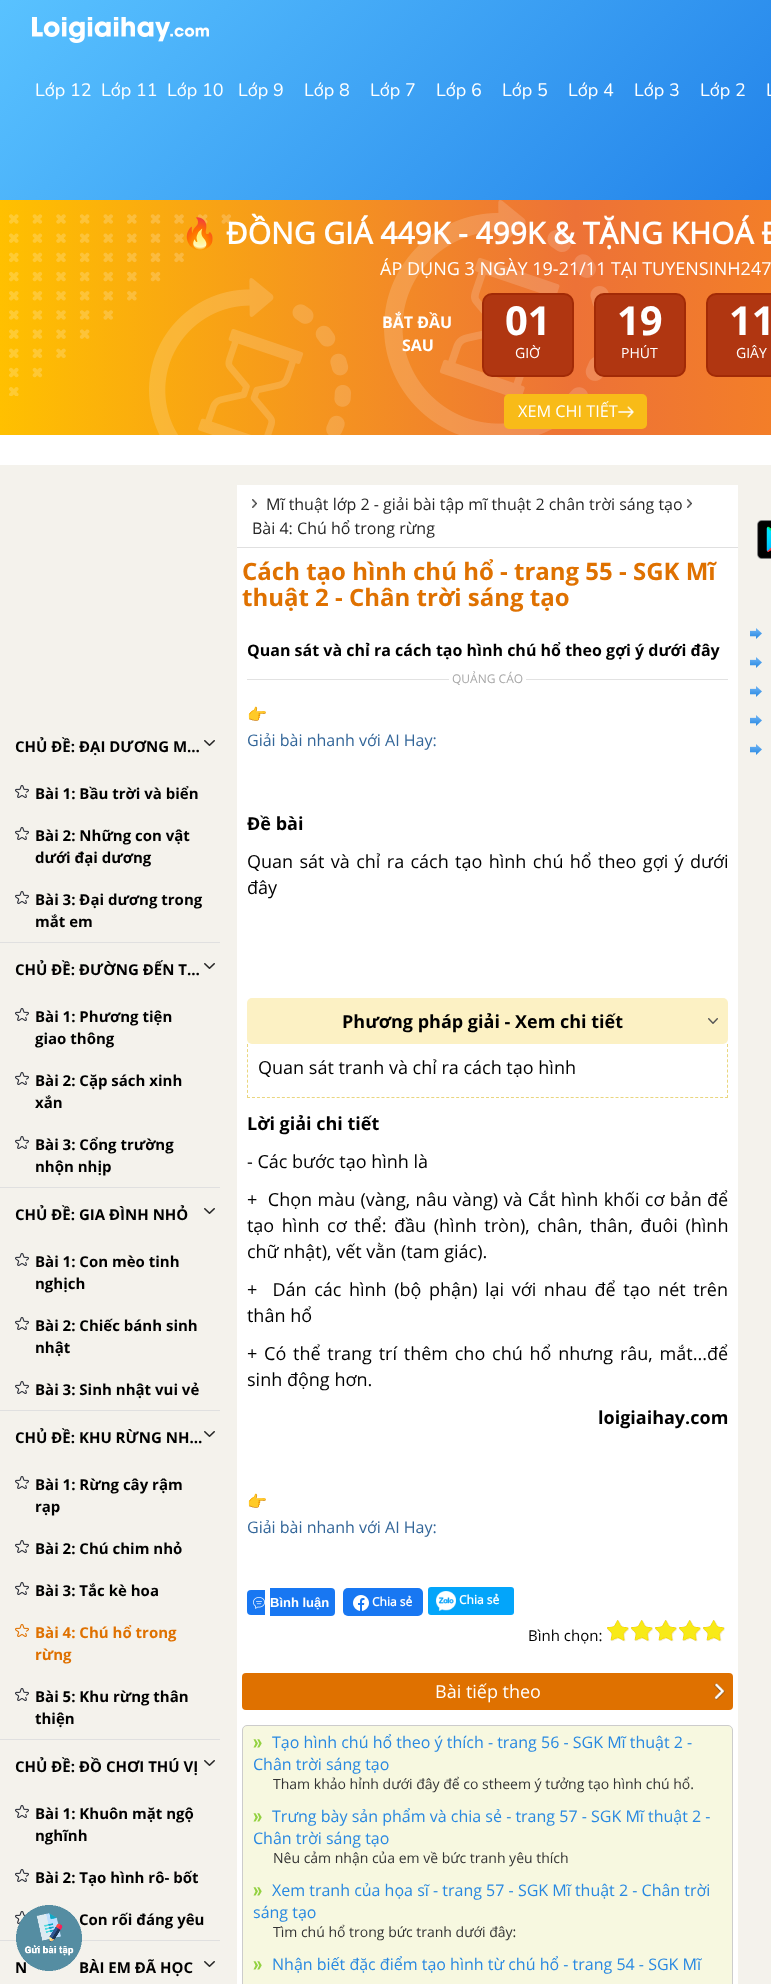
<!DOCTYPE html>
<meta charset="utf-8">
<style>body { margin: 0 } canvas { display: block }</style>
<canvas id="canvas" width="771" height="1984"></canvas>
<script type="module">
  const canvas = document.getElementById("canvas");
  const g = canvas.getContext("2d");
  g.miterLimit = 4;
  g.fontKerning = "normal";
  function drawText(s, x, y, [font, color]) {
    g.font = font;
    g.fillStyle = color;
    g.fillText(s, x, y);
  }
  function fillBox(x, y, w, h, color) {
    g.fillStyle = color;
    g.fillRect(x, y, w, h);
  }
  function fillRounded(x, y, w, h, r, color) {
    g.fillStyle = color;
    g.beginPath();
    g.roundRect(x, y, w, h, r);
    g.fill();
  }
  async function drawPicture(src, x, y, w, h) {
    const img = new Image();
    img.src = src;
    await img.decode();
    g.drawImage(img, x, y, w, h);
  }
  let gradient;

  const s1 = ["18px Nunito", "#FFFFFF"];
  const s2 = ["bold 30px Noto Color Emoji", "#FFFFFF"];
  const s3 = ["bold 30px 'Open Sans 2'", "#FFFFFF"];
  const s4 = ["18px Open Sans", "#FFFFFF"];
  const s5 = ["bold 16px Open Sans", "#FFFFFF"];
  const s6 = ["bold 40px Open Sans", "#FFFFFF"];
  const s7 = ["14px Open Sans", "#FFFFFF"];
  const s8 = ["16.25px Open Sans", "#FFFFFF"];
  const s9 = ["bold 15px Open Sans", "#000000"];
  const s10 = ["bold 15px Open Sans", "#DF7100"];
  const s11 = ["16px Open Sans", "#262626"];
  const s12 = ["bold 24px Open Sans", "#DF7100"];
  const s13 = ["bold 16px Open Sans", "#000000"];
  const s14 = ["12px Open Sans", "#A7A7A7"];
  const s15 = ["16px Noto Color Emoji", "#336699"];
  const s16 = ["16px Open Sans", "#336699"];
  const s17 = ["bold 18px Open Sans", "#000000"];
  const s18 = ["18px Open Sans", "#000000"];
  const s19 = ["bold 13px Liberation Sans", "#FFFFFF"];
  const s20 = ["bold 12px 'Open Sans 2'", "#FFFFFF"];
  const s21 = ["15px Open Sans", "#000000"];
  const s22 = ["16px Open Sans", "#2888E1"];
  const s23 = ["14px Open Sans", "#333333"];

  fillBox(0, 0, 771, 1984, "#FFFFFF");
  gradient = g.createLinearGradient(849, 416, 216, -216);
  gradient.addColorStop(0, "#1270E3");
  gradient.addColorStop(1, "#59C2FF");
  g.fillStyle = gradient;
  g.fillRect(0, 0, 771, 200);
  await drawPicture("pic1.png", 32, 17, 177, 26);
  drawText("Lớp 12", 35, 96, s1);
  drawText("Lớp 11", 101, 96, s1);
  drawText("Lớp 10", 167, 96, s1);
  drawText("Lớp 9", 238, 96, s1);
  drawText("Lớp 8", 304, 96, s1);
  drawText("Lớp 7", 370, 96, s1);
  drawText("Lớp 6", 436, 96, s1);
  drawText("Lớp 5", 502, 96, s1);
  drawText("Lớp 4", 568, 96, s1);
  drawText("Lớp 3", 634, 96, s1);
  drawText("Lớp 2", 700, 96, s1);
  drawText("L", 766, 96, s1);
  gradient = g.createLinearGradient(0, 318, 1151, 317);
  gradient.addColorStop(0, "#FFC000");
  gradient.addColorStop(0.5, "#ED7237");
  gradient.addColorStop(1, "#FF950C");
  g.fillStyle = gradient;
  g.fillRect(0, 200, 771, 235);
  await drawPicture("pic2.png", 9, 200, 600, 235);
  drawText("🔥", 181, 244, s2);
  drawText("ĐỒNG GIÁ 449K - 499K & TẶNG KHOÁ Đ", 226, 244, s3);
  drawText("ÁP DỤNG 3 NGÀY 19-21/11 TẠI TUYENSINH247", 380, 275, s4);
  drawText("BẮT ĐẦU", 382, 328, s5);
  drawText("SAU", 402, 351, s5);
  g.fillStyle = "#B03611";
  g.beginPath();
  g.roundRect(483, 294, 90, 82, 9);
  g.fill();
  g.strokeStyle = "#A22A06";
  g.lineWidth = 2;
  g.stroke();
  drawText("01", 505, 335, s6);
  drawText("GIỜ", 515, 358, s7);
  g.fillStyle = "#B03611";
  g.beginPath();
  g.roundRect(595, 294, 90, 82, 9);
  g.fill();
  g.stroke();
  drawText("19", 617, 335, s6);
  drawText("PHÚT", 621, 358, s7);
  g.fillStyle = "#B03611";
  g.beginPath();
  g.roundRect(707, 294, 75, 82, 9);
  g.fill();
  g.stroke();
  drawText("11", 729, 335, s6);
  drawText("GIÂY", 736, 358, s7);
  fillRounded(504, 394, 143, 35, 5, "#F8BB18");
  drawText("XEM CHI TIẾT", 518, 417, s8);
  await drawPicture("pic3.png", 618, 406, 16, 12);
  fillBox(0, 465, 771, 1519, "#F4F2EC");
  fillBox(0, 942, 220, 1, "#E0E0E0");
  drawText("CHỦ ĐỀ: ĐẠI DƯƠNG M…", 15, 752, s9);
  await drawPicture("pic4.png", 204, 740, 11, 6);
  await drawPicture("pic5.png", 15, 785, 14, 13);
  drawText("Bài 1: Bầu trời và biển", 35, 799, s9);
  await drawPicture("pic5.png", 15, 827, 14, 13);
  drawText("Bài 2: Những con vật", 35, 841, s9);
  drawText("dưới đại dương", 35, 863, s9);
  await drawPicture("pic5.png", 15, 891, 14, 13);
  drawText("Bài 3: Đại dương trong", 35, 905, s9);
  drawText("mắt em", 35, 927, s9);
  fillBox(0, 1187, 220, 1, "#E0E0E0");
  drawText("CHỦ ĐỀ: ĐƯỜNG ĐẾN T…", 15, 975, s9);
  await drawPicture("pic4.png", 204, 963, 11, 6);
  await drawPicture("pic5.png", 15, 1008, 14, 13);
  drawText("Bài 1: Phương tiện", 35, 1022, s9);
  drawText("giao thông", 35, 1044, s9);
  await drawPicture("pic5.png", 15, 1072, 14, 13);
  drawText("Bài 2: Cặp sách xinh", 35, 1086, s9);
  drawText("xắn", 35, 1108, s9);
  await drawPicture("pic5.png", 15, 1136, 14, 13);
  drawText("Bài 3: Cổng trường", 35, 1150, s9);
  drawText("nhộn nhịp", 35, 1172, s9);
  fillBox(0, 1410, 220, 1, "#E0E0E0");
  drawText("CHỦ ĐỀ: GIA ĐÌNH NHỎ", 15, 1220, s9);
  await drawPicture("pic4.png", 204, 1208, 11, 6);
  await drawPicture("pic5.png", 15, 1253, 14, 13);
  drawText("Bài 1: Con mèo tinh", 35, 1267, s9);
  drawText("nghịch", 35, 1289, s9);
  await drawPicture("pic5.png", 15, 1317, 14, 13);
  drawText("Bài 2: Chiếc bánh sinh", 35, 1331, s9);
  drawText("nhật", 35, 1353, s9);
  await drawPicture("pic5.png", 15, 1381, 14, 13);
  drawText("Bài 3: Sinh nhật vui vẻ", 35, 1395, s9);
  fillBox(0, 1739, 220, 1, "#E0E0E0");
  drawText("CHỦ ĐỀ: KHU RỪNG NH…", 15, 1443, s9);
  await drawPicture("pic4.png", 204, 1431, 11, 6);
  await drawPicture("pic5.png", 15, 1476, 14, 13);
  drawText("Bài 1: Rừng cây rậm", 35, 1490, s9);
  drawText("rạp", 35, 1512, s9);
  await drawPicture("pic5.png", 15, 1540, 14, 13);
  drawText("Bài 2: Chú chim nhỏ", 35, 1554, s9);
  await drawPicture("pic5.png", 15, 1582, 14, 13);
  drawText("Bài 3: Tắc kè hoa", 35, 1596, s9);
  await drawPicture("pic6.png", 15, 1624, 14, 13);
  drawText("Bài 4: Chú hổ trong", 35, 1638, s10);
  drawText("rừng", 35, 1660, s10);
  await drawPicture("pic5.png", 15, 1688, 14, 13);
  drawText("Bài 5: Khu rừng thân", 35, 1702, s9);
  drawText("thiện", 35, 1724, s9);
  fillBox(0, 1940, 220, 1, "#E0E0E0");
  drawText("CHỦ ĐỀ: ĐỒ CHƠI THÚ VỊ", 15, 1772, s9);
  await drawPicture("pic4.png", 204, 1760, 11, 6);
  await drawPicture("pic5.png", 15, 1805, 14, 13);
  drawText("Bài 1: Khuôn mặt ngộ", 35, 1819, s9);
  drawText("nghĩnh", 35, 1841, s9);
  await drawPicture("pic5.png", 15, 1869, 14, 13);
  drawText("Bài 2: Tạo hình rô- bốt", 35, 1883, s9);
  await drawPicture("pic7.png", 15, 1911, 11, 13);
  drawText("Con rối đáng yêu", 79, 1925, s9);
  drawText("N", 15, 1973, s9);
  drawText("BÀI EM ĐÃ HỌC", 79, 1973, s9);
  await drawPicture("pic4.png", 204, 1961, 11, 6);
  fillBox(237, 485, 501, 1499, "#FFFFFF");
  fillBox(237, 547, 501, 1, "#E0E0E0");
  await drawPicture("pic8.png", 252, 499, 5, 9);
  drawText("Mĩ thuật lớp 2 - giải bài tập mĩ thuật 2 chân trời sáng tạo", 266, 510, s11);
  await drawPicture("pic9.png", 687, 499, 5, 9);
  drawText("Bài 4: Chú hổ trong rừng", 252, 534, s11);
  drawText("Cách tạo hình chú hổ - trang 55 - SGK Mĩ", 242, 580, s12);
  drawText("thuật 2 - Chân trời sáng tạo", 242, 606, s12);
  drawText("Quan sát và chỉ ra cách tạo hình chú hổ theo gợi ý dưới đây", 247, 656, s13);
  fillBox(247, 679, 481, 1, "#E2E2E2");
  fillBox(449, 679, 77, 1, "#FFFFFF");
  drawText("QUẢNG CÁO", 452, 683, s14);
  drawText("👉", 247, 720, s15);
  drawText("Giải bài nhanh với AI Hay:", 247, 746, s16);
  drawText("Đề bài", 247, 830, s17);
  g.wordSpacing = "1.7px";
  drawText("Quan sát và chỉ ra cách tạo hình chú hổ theo gợi ý dưới", 247, 868, s18);
  g.wordSpacing = "0px";
  drawText("đây", 247, 894, s18);
  fillRounded(247, 998, 481, 46, 5, "#FCF1C4");
  drawText("Phương pháp giải - Xem chi tiết", 342, 1028, s17);
  await drawPicture("pic10.png", 708, 1018, 10, 6);
  g.beginPath();
  g.moveTo(727.5, 1044);
  g.lineTo(727.5, 1098);
  g.strokeStyle = "#EAD67E";
  g.lineWidth = 1;
  g.setLineDash([3, 2.1]);
  g.stroke();
  g.beginPath();
  g.moveTo(247, 1097.5);
  g.lineTo(728, 1097.5);
  g.setLineDash([3, 1.98]);
  g.stroke();
  g.beginPath();
  g.moveTo(247.5, 1044);
  g.lineTo(247.5, 1098);
  g.setLineDash([3, 2.1]);
  g.stroke();
  drawText("Quan sát tranh và chỉ ra cách tạo hình", 258, 1074, s18);
  drawText("Lời giải chi tiết", 247, 1130, s17);
  drawText("- Các bước tạo hình là", 247, 1168, s18);
  g.wordSpacing = "0.6px";
  drawText("+  Chọn màu (vàng, nâu vàng) và Cắt hình khối cơ bản để", 247, 1206, s18);
  g.wordSpacing = "2.9px";
  drawText("tạo hình cơ thể: đầu (hình tròn), chân, thân, đuôi (hình", 247, 1232, s18);
  g.wordSpacing = "0px";
  drawText("chữ nhật), vết vằn (tam giác).", 247, 1258, s18);
  g.wordSpacing = "2.9px";
  drawText("+  Dán các hình (bộ phận) lại với nhau để tạo nét trên", 247, 1296, s18);
  g.wordSpacing = "0px";
  drawText("thân hổ", 247, 1322, s18);
  g.wordSpacing = "2.1px";
  drawText("+ Có thể trang trí thêm cho chú hổ nhưng râu, mắt...để", 247, 1360, s18);
  g.wordSpacing = "0px";
  drawText("sinh động hơn.", 247, 1386, s18);
  drawText("loigiaihay.com", 598, 1424, s17);
  drawText("👉", 247, 1507, s15);
  drawText("Giải bài nhanh với AI Hay:", 247, 1533, s16);
  g.fillStyle = "#1877F2";
  g.beginPath();
  g.roundRect(247, 1590, 18, 25, [4, 0, 0, 4]);
  g.fill();
  await drawPicture("pic11.png", 253, 1597, 12, 12);
  g.beginPath();
  g.roundRect(270, 1588, 65, 28, [0, 4, 4, 0]);
  g.fill();
  drawText("Bình luận", 270, 1607, s19);
  fillRounded(343, 1588, 80, 28, 5, "#1877F2");
  await drawPicture("pic12.png", 353, 1595, 16, 16);
  drawText("Chia sẻ", 372, 1606, s20);
  fillRounded(428, 1587, 86, 28, 3, "#03A5FA");
  await drawPicture("pic13.png", 436, 1591, 20, 20);
  drawText("Chia sẻ", 459, 1604, s20);
  drawText("Bình chọn:", 528, 1641, s21);
  await drawPicture("pic14.png", 607, 1620, 118, 22);
  await drawPicture("pic15.png", 607, 1620, 117, 21);
  fillRounded(242, 1673, 491, 37, 4, "#DF7100");
  drawText("Bài tiếp theo", 435, 1698, s4);
  await drawPicture("pic16.png", 714, 1683, 11, 17);
  g.fillStyle = "#F7F8E0";
  g.beginPath();
  g.roundRect(242.5, 1725.5, 490, 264, 4.5);
  g.fill();
  g.strokeStyle = "#CCCCCC";
  g.setLineDash([]);
  g.stroke();
  await drawPicture("pic17.png", 253, 1739, 9, 9);
  drawText("Tạo hình chú hổ theo ý thích - trang 56 - SGK Mĩ thuật 2 -", 272, 1748, s22);
  drawText("Chân trời sáng tạo", 253, 1770, s22);
  drawText("Tham khảo hỉnh dưới đây để co stheem ý tưởng tạo hình chú hổ.", 273, 1789, s23);
  await drawPicture("pic17.png", 253, 1813, 9, 9);
  drawText("Trưng bày sản phẩm và chia sẻ - trang 57 - SGK Mĩ thuật 2 -", 272, 1822, s22);
  drawText("Chân trời sáng tạo", 253, 1844, s22);
  drawText("Nêu cảm nhận của em về bức tranh yêu thích", 273, 1863, s23);
  await drawPicture("pic17.png", 253, 1887, 9, 9);
  drawText("Xem tranh của họa sĩ - trang 57 - SGK Mĩ thuật 2 - Chân trời", 272, 1896, s22);
  drawText("sáng tạo", 253, 1918, s22);
  drawText("Tìm chú hổ trong bức tranh dưới đây:", 273, 1937, s23);
  await drawPicture("pic17.png", 253, 1961, 9, 9);
  drawText("Nhận biết đặc điểm tạo hình từ chú hổ - trang 54 - SGK Mĩ", 272, 1970, s22);
  await drawPicture("pic18.png", 757, 520, 14, 39);
  await drawPicture("pic19.png", 750, 628, 12, 11);
  await drawPicture("pic19.png", 750, 657, 12, 11);
  await drawPicture("pic19.png", 750, 686, 12, 11);
  await drawPicture("pic19.png", 750, 715, 12, 11);
  await drawPicture("pic19.png", 750, 744, 12, 11);
  await drawPicture("pic20.png", 16, 1905, 66, 66);
</script>
